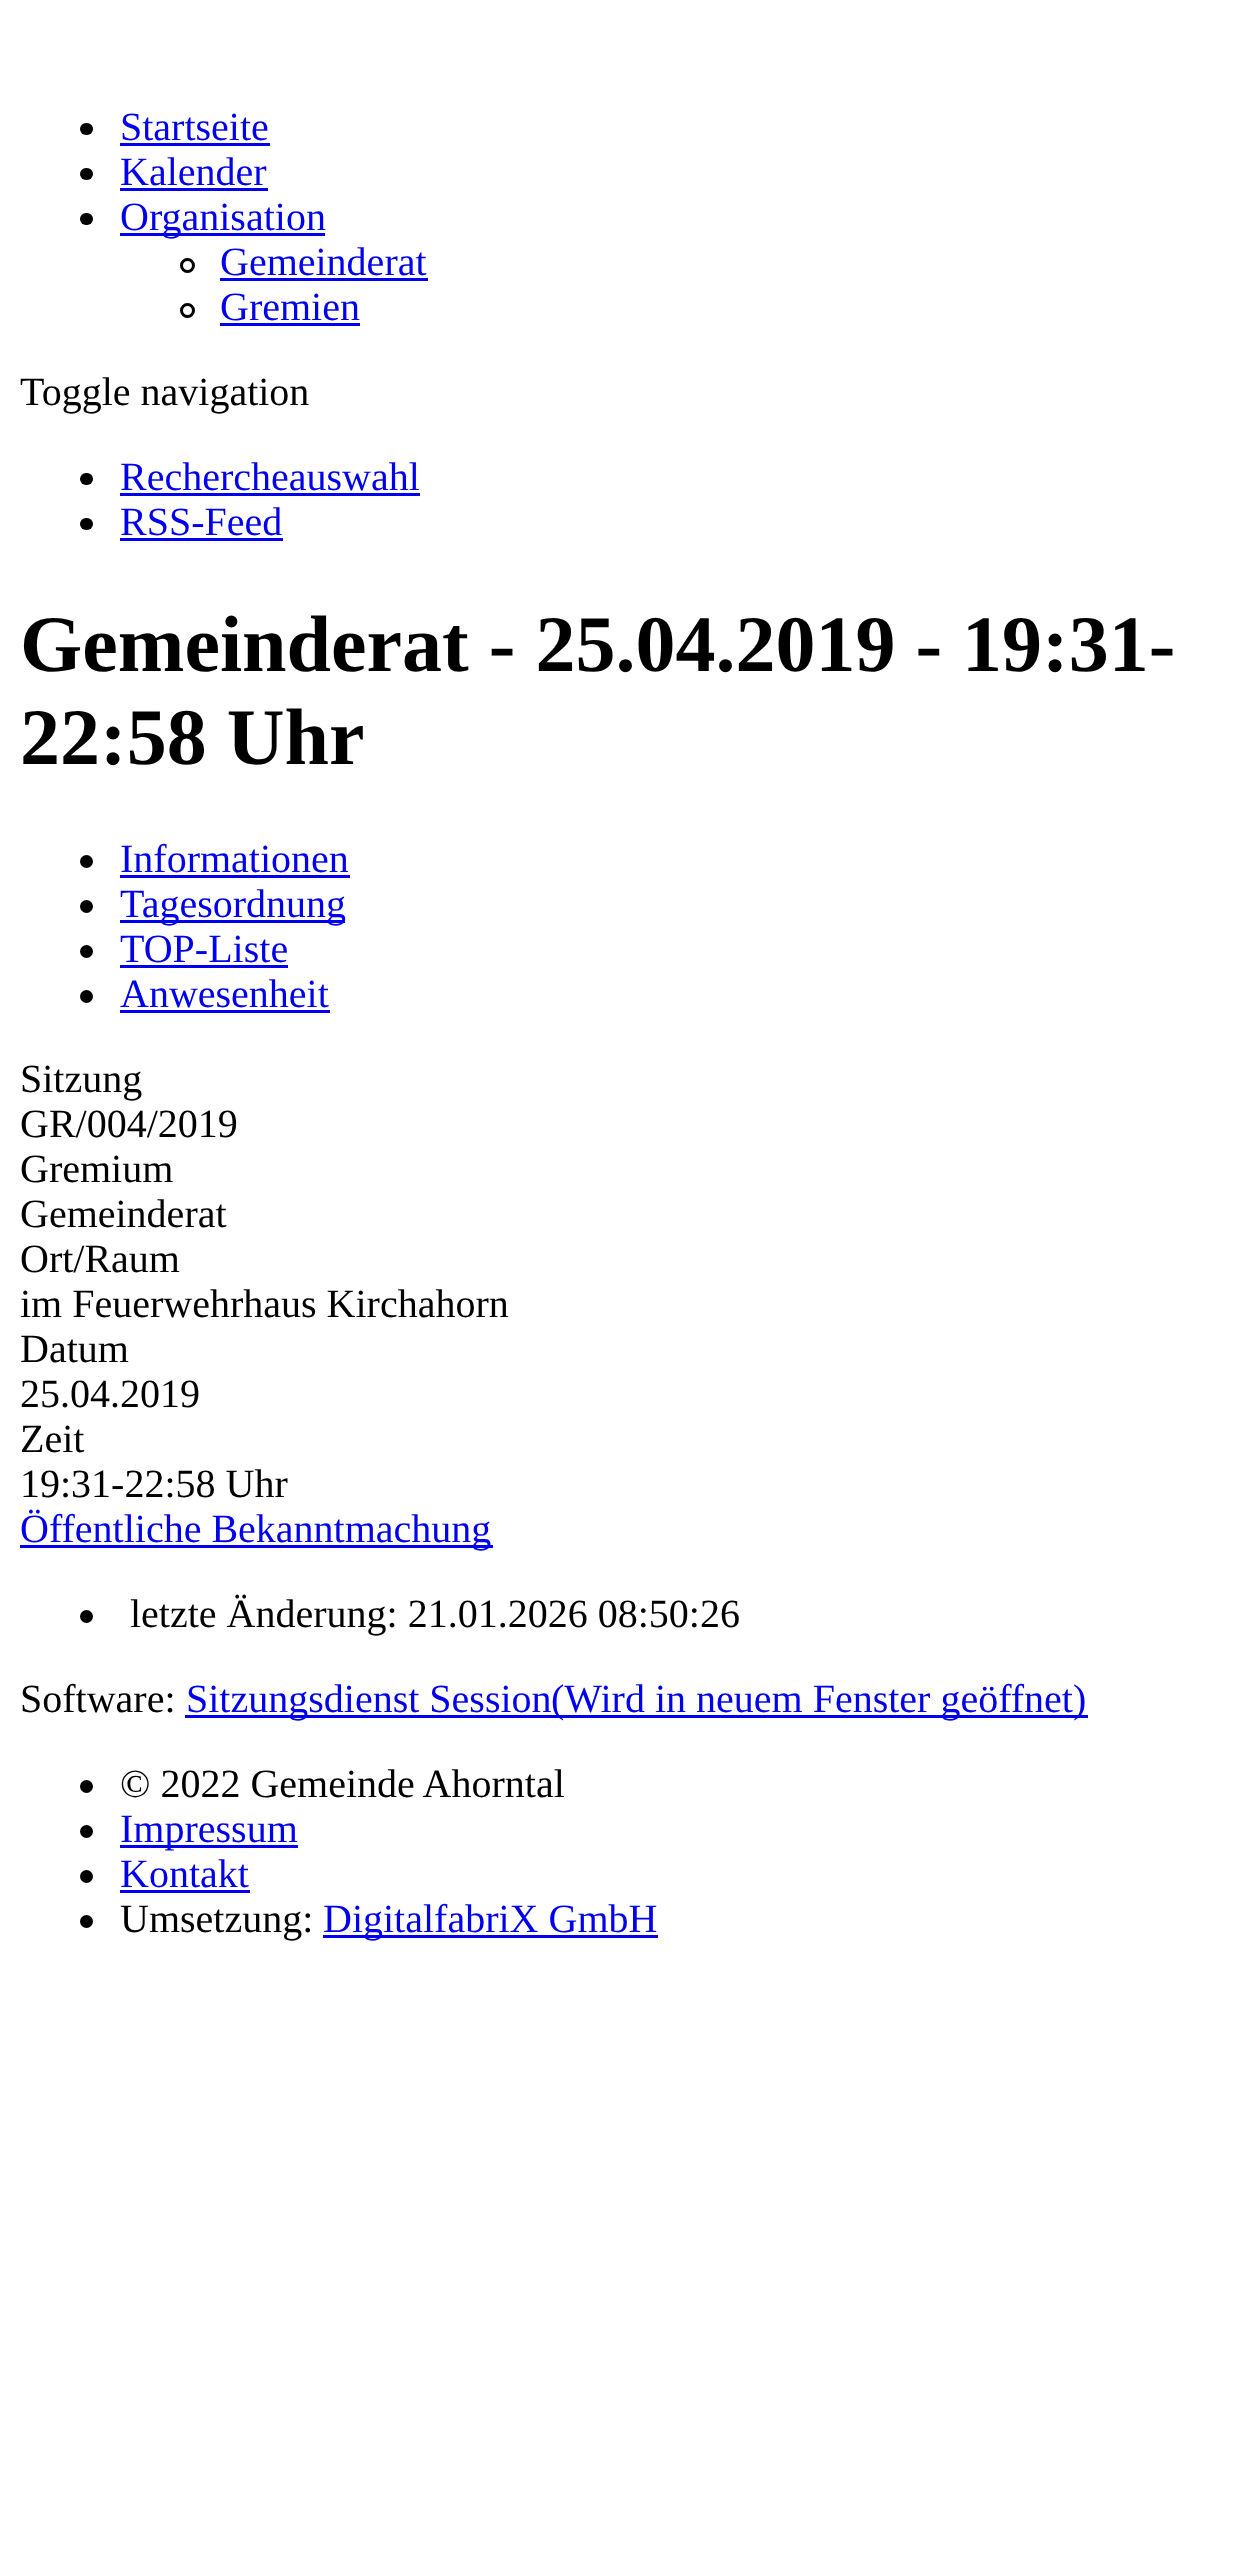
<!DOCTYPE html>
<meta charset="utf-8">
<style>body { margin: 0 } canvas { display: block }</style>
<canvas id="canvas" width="1257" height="2576"></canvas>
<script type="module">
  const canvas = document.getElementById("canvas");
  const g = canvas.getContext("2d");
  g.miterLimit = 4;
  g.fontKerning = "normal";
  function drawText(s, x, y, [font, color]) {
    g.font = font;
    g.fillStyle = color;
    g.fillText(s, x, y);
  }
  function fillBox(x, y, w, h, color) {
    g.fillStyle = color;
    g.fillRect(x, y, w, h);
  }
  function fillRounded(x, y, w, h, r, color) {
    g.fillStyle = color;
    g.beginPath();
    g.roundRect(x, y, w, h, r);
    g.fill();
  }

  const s1 = ["40px Liberation Serif", "#0000EE"];
  const s2 = ["40px Liberation Serif", "#000000"];
  const s3 = ["bold 80px Liberation Serif", "#000000"];

  fillBox(0, 0, 1257, 2576, "#FFFFFF");
  fillRounded(80, 123, 13, 12, 6, "#000000");
  drawText("Startseite", 120, 140, s1);
  fillBox(120, 143, 150, 3, "#0000EE");
  fillRounded(80, 168, 13, 12, 6, "#000000");
  drawText("Kalender", 120, 185, s1);
  fillBox(120, 188, 148, 3, "#0000EE");
  fillRounded(80, 213, 13, 12, 6, "#000000");
  fillBox(120, 233, 205, 3, "#0000EE");
  drawText("Organisation", 120, 230, s1);
  g.beginPath();
  g.arc(187.5, 265.5, 6, 0, Math.PI * 2);
  g.strokeStyle = "#000000";
  g.lineWidth = 3;
  g.stroke();
  drawText("Gemeinderat", 220, 275, s1);
  fillBox(220, 278, 208, 3, "#0000EE");
  g.beginPath();
  g.arc(187.5, 310.5, 6, 0, Math.PI * 2);
  g.stroke();
  drawText("Gremien", 220, 320, s1);
  fillBox(220, 323, 140, 3, "#0000EE");
  drawText("Toggle navigation", 20, 405, s2);
  fillRounded(80, 473, 13, 12, 6, "#000000");
  drawText("Rechercheauswahl", 120, 490, s1);
  fillBox(120, 493, 300, 3, "#0000EE");
  fillRounded(80, 518, 13, 12, 6, "#000000");
  drawText("RSS-Feed", 120, 535, s1);
  fillBox(120, 538, 163, 3, "#0000EE");
  drawText("Gemeinderat - 25.04.2019 - 19:31-", 20, 671, s3);
  drawText("22:58 Uhr", 20, 764, s3);
  g.beginPath();
  g.arc(86.5, 861.5, 6.5, 0, Math.PI * 2);
  g.fill();
  drawText("Informationen", 120, 872, s1);
  fillBox(120, 875, 230, 3, "#0000EE");
  g.fillStyle = "#000000";
  g.beginPath();
  g.arc(86.5, 906.5, 6.5, 0, Math.PI * 2);
  g.fill();
  fillBox(120, 920, 225, 3, "#0000EE");
  drawText("Tagesordnung", 120, 917, s1);
  g.fillStyle = "#000000";
  g.beginPath();
  g.arc(86.5, 951.5, 6.5, 0, Math.PI * 2);
  g.fill();
  drawText("TOP-Liste", 120, 962, s1);
  fillBox(120, 965, 168, 3, "#0000EE");
  g.fillStyle = "#000000";
  g.beginPath();
  g.arc(86.5, 996.5, 6.5, 0, Math.PI * 2);
  g.fill();
  drawText("Anwesenheit", 120, 1007, s1);
  fillBox(120, 1010, 210, 3, "#0000EE");
  drawText("Sitzung", 20, 1092, s2);
  drawText("GR/004/2019", 20, 1137, s2);
  drawText("Gremium", 20, 1182, s2);
  drawText("Gemeinderat", 20, 1227, s2);
  drawText("Ort/Raum", 20, 1272, s2);
  drawText("im Feuerwehrhaus Kirchahorn", 20, 1317, s2);
  drawText("Datum", 20, 1362, s2);
  drawText("25.04.2019", 20, 1407, s2);
  drawText("Zeit", 20, 1452, s2);
  drawText("19:31-22:58 Uhr", 20, 1497, s2);
  fillBox(20, 1545, 473, 3, "#0000EE");
  drawText("Öffentliche Bekanntmachung", 20, 1542, s1);
  g.fillStyle = "#000000";
  g.beginPath();
  g.arc(86.5, 1616.5, 6.5, 0, Math.PI * 2);
  g.fill();
  drawText("letzte Änderung: 21.01.2026 08:50:26", 130, 1627, s2);
  drawText("Software:", 20, 1712, s2);
  fillBox(185, 1715, 365, 3, "#0000EE");
  drawText("Sitzungsdienst Session", 186, 1712, s1);
  fillBox(550, 1715, 538, 3, "#0000EE");
  drawText("(Wird in neuem Fenster geöffnet)", 551, 1712, s1);
  g.fillStyle = "#000000";
  g.beginPath();
  g.arc(86.5, 1786.5, 6.5, 0, Math.PI * 2);
  g.fill();
  drawText("© 2022 Gemeinde Ahorntal", 120, 1797, s2);
  g.beginPath();
  g.arc(86.5, 1831.5, 6.5, 0, Math.PI * 2);
  g.fill();
  fillBox(120, 1845, 178, 3, "#0000EE");
  drawText("Impressum", 120, 1842, s1);
  g.fillStyle = "#000000";
  g.beginPath();
  g.arc(86.5, 1876.5, 6.5, 0, Math.PI * 2);
  g.fill();
  drawText("Kontakt", 120, 1887, s1);
  fillBox(120, 1890, 130, 3, "#0000EE");
  g.fillStyle = "#000000";
  g.beginPath();
  g.arc(86.5, 1921.5, 6.5, 0, Math.PI * 2);
  g.fill();
  drawText("Umsetzung:", 120, 1932, s2);
  fillBox(323, 1935, 335, 3, "#0000EE");
  drawText("DigitalfabriX GmbH", 323, 1932, s1);
</script>
